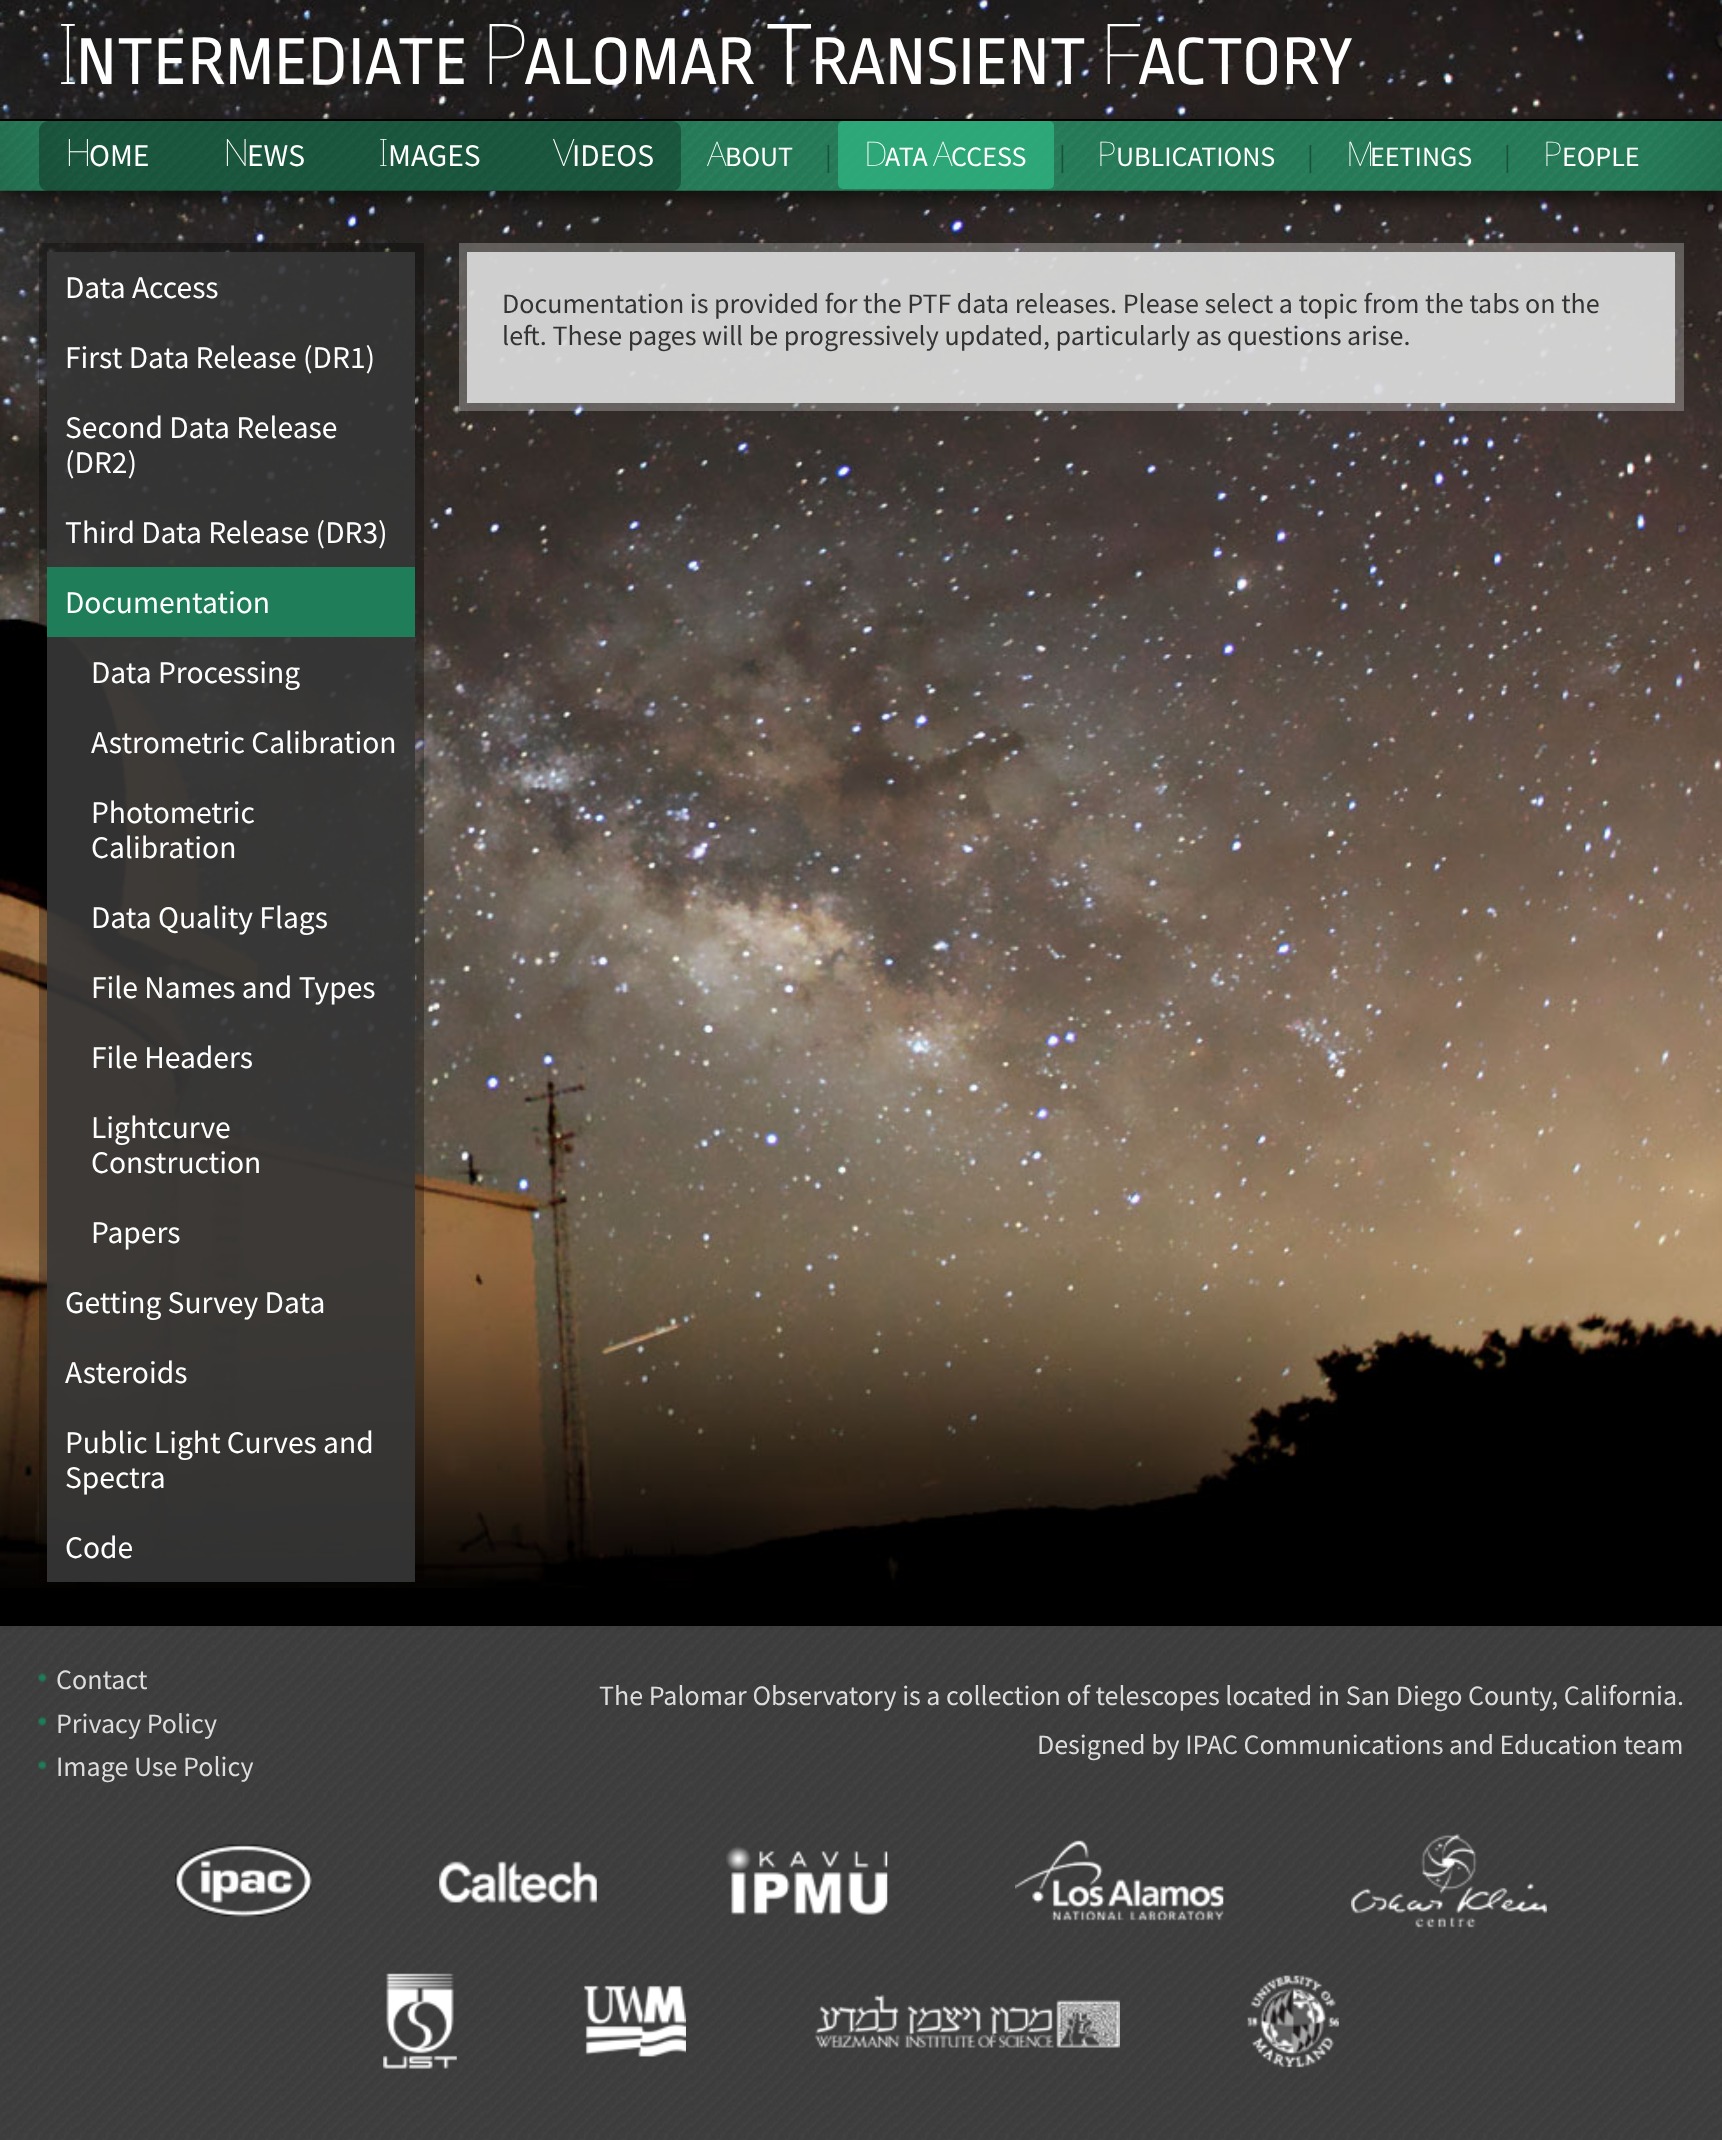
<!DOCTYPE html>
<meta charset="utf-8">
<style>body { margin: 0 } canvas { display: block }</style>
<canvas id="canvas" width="1722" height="2140"></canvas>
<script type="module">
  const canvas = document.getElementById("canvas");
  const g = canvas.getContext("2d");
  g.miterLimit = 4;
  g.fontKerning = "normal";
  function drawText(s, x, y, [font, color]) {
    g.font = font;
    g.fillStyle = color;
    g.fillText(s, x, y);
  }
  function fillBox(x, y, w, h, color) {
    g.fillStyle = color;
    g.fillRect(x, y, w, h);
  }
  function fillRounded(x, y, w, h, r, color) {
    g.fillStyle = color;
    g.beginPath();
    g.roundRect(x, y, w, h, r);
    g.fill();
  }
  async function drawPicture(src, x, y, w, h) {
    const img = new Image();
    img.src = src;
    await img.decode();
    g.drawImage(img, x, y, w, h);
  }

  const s1 = ["100 84px Noto Sans", "#FFFFFF"];
  const s2 = ["70px Ropa Sans", "#FFFFFF"];
  const s3 = ["300 84px Noto Sans", "#FFFFFF"];
  const s4 = ["100 38px Noto Sans", "#FFFFFF"];
  const s5 = ["31.5px Source Sans Pro", "#FFFFFF"];
  const s6 = ["100 34px Noto Sans", "#FFFFFF"];
  const s7 = ["28px Source Sans Pro", "#FFFFFF"];
  const s8 = ["28px Source Sans Pro", "#17523B"];
  const s9 = ["28px Source Sans Pro", "#333333"];
  const s10 = ["28px Source Sans Pro", "#DDDDDD"];

  fillBox(0, 0, 1722, 2140, "#000000");
  await drawPicture("pic1.png", 0, 0, 1722, 1588);
  drawText("I", 56, 84, s1);
  drawText("NTERMEDIATE", 76, 84, s2);
  drawText("P", 481, 84, s1);
  drawText("ALOMAR", 524, 84, s2);
  drawText("T", 767, 84, s3);
  drawText("RANSIENT", 811, 84, s2);
  drawText("F", 1099, 84, s1);
  drawText("ACTORY", 1138, 84, s2);
  g.fillStyle = "rgba(0, 0, 0, 0.5)";
  g.filter = "blur(9px)";
  g.beginPath();
  g.rect(0, 128, 1722, 72);
  g.fill();
  g.filter = "none";
  await drawPicture("pic2.png", 0, 121, 1722, 70);
  fillBox(0, 119, 1722, 2, "#000000");
  fillRounded(39, 121, 642, 70, 9, "rgba(0, 0, 0, 0.3)");
  drawText("H", 65, 166, s4);
  drawText("OME", 89, 166, s5);
  drawText("N", 223, 166, s4);
  drawText("EWS", 247, 166, s5);
  drawText("I", 378, 166, s4);
  drawText("MAGES", 388, 166, s5);
  drawText("V", 553, 166, s4);
  drawText("IDEOS", 572, 166, s5);
  drawText("A", 707, 166, s6);
  drawText("BOUT", 725, 166, s7);
  drawText("|", 825, 166, s8);
  fillRounded(838, 121, 216, 68, 5, "rgba(48, 186, 132, 0.7)");
  drawText("D", 864, 166, s6);
  drawText("ATA", 885, 166, s7);
  drawText("A", 933, 166, s6);
  drawText("CCESS", 951, 166, s7);
  drawText("|", 1059, 166, s8);
  drawText("P", 1097, 166, s6);
  drawText("UBLICATIONS", 1116, 166, s7);
  drawText("|", 1307, 166, s8);
  drawText("M", 1346, 166, s6);
  drawText("EETINGS", 1370, 166, s7);
  drawText("|", 1504, 166, s8);
  drawText("P", 1543, 166, s6);
  drawText("EOPLE", 1562, 166, s7);
  fillBox(39, 243, 385, 1336, "rgba(0, 0, 0, 0.3)");
  fillBox(47, 252, 368, 1330, "rgba(55, 55, 55, 0.9)");
  drawText("Data Access", 65, 298, s5);
  drawText("First Data Release (DR1)", 65, 368, s5);
  drawText("Second Data Release", 65, 438, s5);
  drawText("(DR2)", 65, 473, s5);
  drawText("Third Data Release (DR3)", 65, 543, s5);
  fillBox(47, 567, 368, 70, "#207D59");
  drawText("Documentation", 65, 613, s5);
  drawText("Data Processing", 91, 683, s5);
  drawText("Astrometric Calibration", 91, 753, s5);
  drawText("Photometric", 91, 823, s5);
  drawText("Calibration", 91, 858, s5);
  drawText("Data Quality Flags", 91, 928, s5);
  drawText("File Names and Types", 91, 998, s5);
  drawText("File Headers", 91, 1068, s5);
  drawText("Lightcurve", 91, 1138, s5);
  drawText("Construction", 91, 1173, s5);
  drawText("Papers", 91, 1243, s5);
  drawText("Getting Survey Data", 65, 1313, s5);
  drawText("Asteroids", 65, 1383, s5);
  drawText("Public Light Curves and", 65, 1453, s5);
  drawText("Spectra", 65, 1488, s5);
  drawText("Code", 65, 1558, s5);
  fillBox(459, 243, 1225, 168, "rgba(225, 225, 225, 0.3)");
  fillBox(467, 252, 1208, 151, "rgba(220, 220, 220, 0.9)");
  drawText("Documentation is provided for the PTF data releases. Please select a topic from the tabs on the", 502, 313, s9);
  drawText("left. These pages will be progressively updated, particularly as questions arise.", 502, 345, s9);
  await drawPicture("pic3.png", 0, 1626, 1722, 514);
  await drawPicture("pic4.png", 38, 1673, 9, 9);
  drawText("Contact", 56, 1689, s10);
  await drawPicture("pic5.png", 38, 1716, 9, 10);
  drawText("Privacy Policy", 56, 1733, s10);
  await drawPicture("pic6.png", 38, 1760, 9, 10);
  drawText("Image Use Policy", 56, 1776, s10);
  drawText("The Palomar Observatory is a collection of telescopes located in San Diego County, California.", 599, 1705, s10);
  drawText("Designed by IPAC Communications and Education team", 1037, 1754, s10);
  await drawPicture("pic7.png", 175, 1844, 137, 73);
  await drawPicture("pic8.png", 439, 1861, 158, 42);
  await drawPicture("pic9.png", 726, 1846, 162, 69);
  await drawPicture("pic10.png", 1015, 1840, 209, 81);
  await drawPicture("pic11.png", 1351, 1833, 196, 95);
  await drawPicture("pic12.png", 383, 1973, 74, 96);
  await drawPicture("pic13.png", 584, 1985, 102, 72);
  await drawPicture("pic14.png", 815, 1994, 305, 54);
  await drawPicture("pic15.png", 1247, 1975, 92, 93);
</script>
